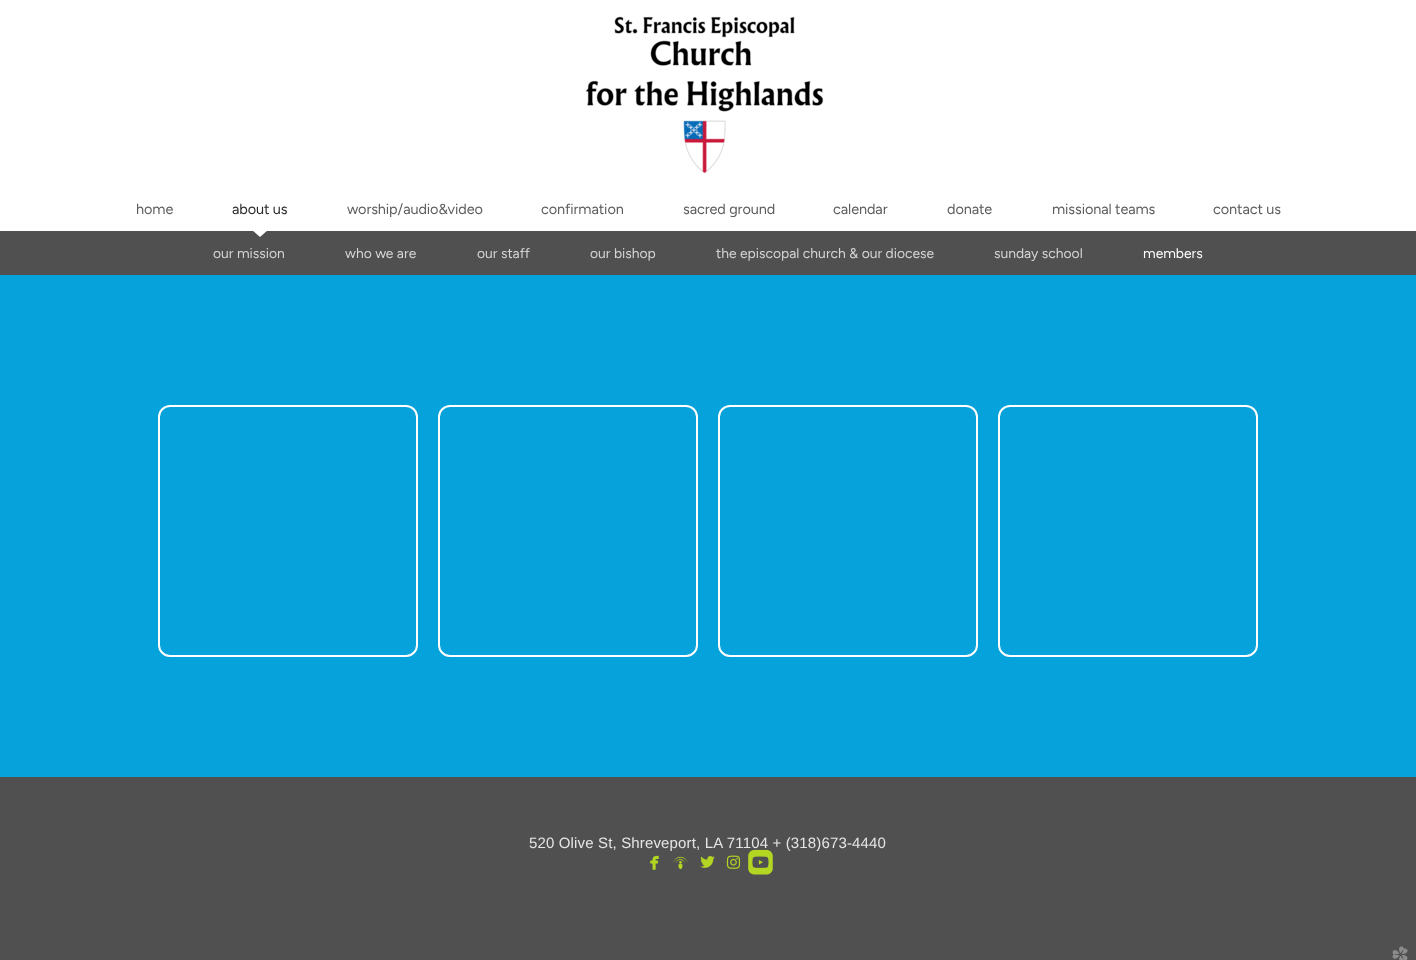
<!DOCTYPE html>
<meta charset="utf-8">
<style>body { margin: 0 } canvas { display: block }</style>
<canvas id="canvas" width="1416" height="960"></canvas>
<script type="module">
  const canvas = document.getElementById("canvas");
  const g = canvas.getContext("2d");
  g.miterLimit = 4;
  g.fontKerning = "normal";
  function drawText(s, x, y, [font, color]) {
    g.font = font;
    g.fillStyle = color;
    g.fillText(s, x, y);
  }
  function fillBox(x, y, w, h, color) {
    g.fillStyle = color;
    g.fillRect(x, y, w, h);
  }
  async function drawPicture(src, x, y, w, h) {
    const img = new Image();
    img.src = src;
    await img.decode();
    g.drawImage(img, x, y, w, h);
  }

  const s1 = ["300 14.5px Figtree", "#5D5D5D"];
  const s2 = ["300 14.5px Figtree", "#2A2A2A"];
  const s3 = ["300 13.9px Figtree", "#D5D5D5"];
  const s4 = ["300 13.9px Figtree", "#FFFFFF"];
  const s5 = ["15px Liberation Sans", "#E5E5E5"];

  fillBox(0, 0, 1416, 960, "#505050");
  fillBox(0, 0, 1416, 231, "#FFFFFF");
  await drawPicture("pic1.png", 585, 16, 239, 158);
  g.letterSpacing = "-0.1px";
  drawText("home", 136, 214, s1);
  drawText("about us", 232, 214, s2);
  g.fillStyle = "#FFFFFF";
  g.beginPath();
  g.moveTo(252, 230);
  g.lineTo(268, 230);
  g.lineTo(260, 237);
  g.closePath();
  g.fill();
  drawText("worship/audio&video", 347, 214, s1);
  drawText("confirmation", 541, 214, s1);
  drawText("sacred ground", 683, 214, s1);
  drawText("calendar", 833, 214, s1);
  drawText("donate", 947, 214, s1);
  drawText("missional teams", 1052, 214, s1);
  drawText("contact us", 1213, 214, s1);
  g.letterSpacing = "0px";
  drawText("our mission", 213, 258, s3);
  drawText("who we are", 345, 258, s3);
  drawText("our staff", 477, 258, s3);
  drawText("our bishop", 590, 258, s3);
  drawText("the episcopal church & our diocese", 716, 258, s3);
  drawText("sunday school", 994, 258, s3);
  drawText("members", 1143, 258, s4);
  fillBox(0, 275, 1416, 502, "#06A2DB");
  g.beginPath();
  g.roundRect(159, 406, 258, 250, 11);
  g.strokeStyle = "#FFFFFF";
  g.lineWidth = 2;
  g.stroke();
  g.beginPath();
  g.roundRect(439, 406, 258, 250, 11);
  g.stroke();
  g.beginPath();
  g.roundRect(719, 406, 258, 250, 11);
  g.stroke();
  g.beginPath();
  g.roundRect(999, 406, 258, 250, 11);
  g.stroke();
  g.letterSpacing = "0.15px";
  drawText("520 Olive St, Shreveport, LA 71104 + (318)673-4440", 529, 848, s5);
  await drawPicture("pic2.png", 650, 855, 9, 15);
  await drawPicture("pic3.png", 673, 856, 15, 14);
  await drawPicture("pic4.png", 700, 856, 15, 12);
  await drawPicture("pic5.png", 726, 855, 15, 14);
  await drawPicture("pic6.png", 748, 849, 25, 26);
  await drawPicture("pic7.png", 1392, 946, 16, 14);
</script>
